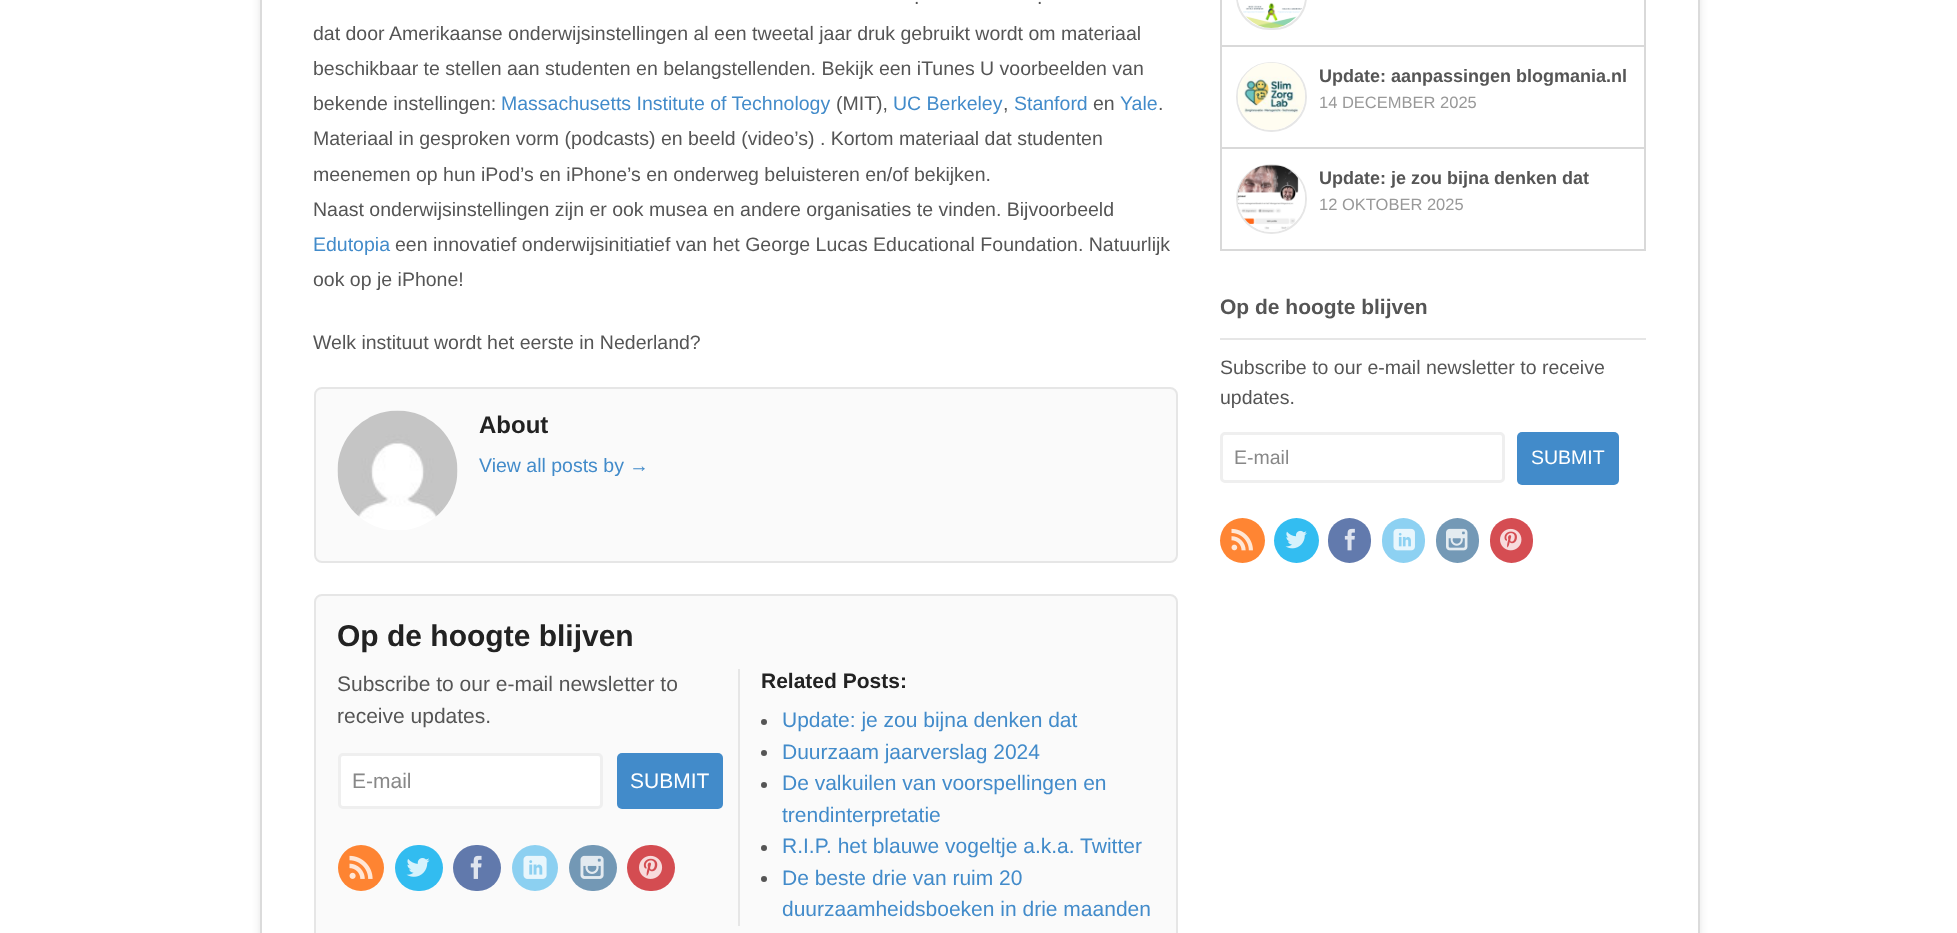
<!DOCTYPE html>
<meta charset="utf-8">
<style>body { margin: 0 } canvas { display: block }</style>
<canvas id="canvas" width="1957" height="933"></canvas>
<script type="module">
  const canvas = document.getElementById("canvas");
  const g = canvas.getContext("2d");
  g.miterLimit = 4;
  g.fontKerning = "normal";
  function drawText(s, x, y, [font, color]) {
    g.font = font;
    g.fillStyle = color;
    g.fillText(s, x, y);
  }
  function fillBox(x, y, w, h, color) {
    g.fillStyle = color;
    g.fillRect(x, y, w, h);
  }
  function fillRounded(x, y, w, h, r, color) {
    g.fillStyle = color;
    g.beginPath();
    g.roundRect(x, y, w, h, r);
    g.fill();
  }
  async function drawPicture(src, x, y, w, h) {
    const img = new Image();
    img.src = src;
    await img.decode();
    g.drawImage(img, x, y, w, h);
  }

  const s1 = ["19.5px Liberation Sans", "#555555"];
  const s2 = ["19.5px Liberation Sans", "#428BCA"];
  const s3 = ["bold 24px Liberation Sans", "#222222"];
  const s4 = ["bold 30px Liberation Sans", "#222222"];
  const s5 = ["21px Liberation Sans", "#555555"];
  const s6 = ["21px Liberation Sans", "#888888"];
  const s7 = ["21px Liberation Sans", "#FFFFFF"];
  const s8 = ["bold 21px Liberation Sans", "#222222"];
  const s9 = ["21px Liberation Sans", "#428BCA"];
  const s10 = ["bold 18px Liberation Sans", "#555555"];
  const s11 = ["16.5px Liberation Sans", "#999999"];
  const s12 = ["bold 21px Liberation Sans", "#555555"];
  const s13 = ["19.5px Liberation Sans", "#888888"];
  const s14 = ["19.5px Liberation Sans", "#FFFFFF"];

  fillBox(0, 0, 1957, 933, "#FFFFFF");
  g.fillStyle = "rgba(0, 0, 0, 0.1)";
  g.filter = "blur(4px)";
  g.beginPath();
  g.rect(260, -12, 1440, 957);
  g.fill();
  g.filter = "none";
  g.fillStyle = "#FFFFFF";
  g.beginPath();
  g.rect(261, -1, 1438, 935);
  g.fill();
  g.strokeStyle = "#DBDBDB";
  g.lineWidth = 2;
  g.stroke();
  drawText(".", 914, 4, s1);
  drawText(".", 1037, 4, s1);
  drawText("dat door Amerikaanse onderwijsinstellingen al een tweetal jaar druk gebruikt wordt om materiaal", 313, 40, s1);
  drawText("beschikbaar te stellen aan studenten en belangstellenden. Bekijk een iTunes U voorbeelden van", 313, 75, s1);
  drawText("bekende instellingen:", 313, 110, s1);
  drawText("Massachusetts Institute of Technology", 501, 110, s2);
  drawText("(MIT),", 836, 110, s1);
  drawText("UC Berkeley", 893, 110, s2);
  drawText(",", 1003, 110, s1);
  drawText("Stanford", 1014, 110, s2);
  drawText("en", 1093, 110, s1);
  drawText("Yale", 1120, 110, s2);
  drawText(".", 1158, 110, s1);
  drawText("Materiaal in gesproken vorm (podcasts) en beeld (video’s) . Kortom materiaal dat studenten", 313, 145, s1);
  drawText("meenemen op hun iPod’s en iPhone’s en onderweg beluisteren en/of bekijken.", 313, 181, s1);
  drawText("Naast onderwijsinstellingen zijn er ook musea en andere organisaties te vinden. Bijvoorbeeld", 313, 216, s1);
  drawText("Edutopia", 313, 251, s2);
  drawText("een innovatief onderwijsinitiatief van het George Lucas Educational Foundation. Natuurlijk", 395, 251, s1);
  drawText("ook op je iPhone!", 313, 286, s1);
  drawText("Welk instituut wordt het eerste in Nederland?", 313, 349, s1);
  g.fillStyle = "#FAFAFA";
  g.beginPath();
  g.roundRect(315, 388, 862, 174, 7);
  g.fill();
  g.strokeStyle = "#E6E6E6";
  g.stroke();
  await drawPicture("pic1.png", 337, 410, 121, 120);
  drawText("About", 479, 433, s3);
  drawText("View all posts by →", 479, 472, s2);
  g.fillStyle = "#FAFAFA";
  g.beginPath();
  g.roundRect(315, 595, 862, 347, 7);
  g.fill();
  g.stroke();
  drawText("Op de hoogte blijven", 337, 646, s4);
  drawText("Subscribe to our e-mail newsletter to", 337, 691, s5);
  drawText("receive updates.", 337, 723, s5);
  g.fillStyle = "#FFFFFF";
  g.beginPath();
  g.roundRect(339.5, 754.5, 262, 53, 3.5);
  g.fill();
  g.strokeStyle = "#EFEFEF";
  g.lineWidth = 3;
  g.stroke();
  drawText("E-mail", 352, 788, s6);
  fillRounded(617, 753, 106, 56, 5, "#428BCA");
  drawText("SUBMIT", 630, 788, s7);
  g.fillStyle = "#FE8432";
  g.beginPath();
  g.arc(361, 868, 23, 0, Math.PI * 2);
  g.fill();
  await drawPicture("pic2.png", 349, 855, 24, 24);
  fillRounded(395, 845, 48, 46, 23, "#32BCF0");
  await drawPicture("pic3.png", 406, 858, 24, 19);
  fillRounded(453, 845, 48, 46, 23, "#6179AC");
  await drawPicture("pic4.png", 470, 855, 12, 24);
  g.fillStyle = "#8CD0F1";
  g.beginPath();
  g.arc(535, 868, 23, 0, Math.PI * 2);
  g.fill();
  await drawPicture("pic5.png", 523, 855, 24, 24);
  fillRounded(569, 845, 48, 46, 23, "#7398B5");
  await drawPicture("pic6.png", 580, 855, 24, 24);
  fillRounded(627, 845, 48, 46, 23, "#D44C51");
  await drawPicture("pic7.png", 639, 855, 24, 24);
  fillBox(738, 669, 2, 257, "#E6E6E6");
  drawText("Related Posts:", 761, 688, s8);
  g.fillStyle = "#555555";
  g.beginPath();
  g.arc(764, 722, 3, 0, Math.PI * 2);
  g.fill();
  drawText("Update: je zou bijna denken dat", 782, 727, s9);
  g.fillStyle = "#555555";
  g.beginPath();
  g.arc(764, 753, 3, 0, Math.PI * 2);
  g.fill();
  drawText("Duurzaam jaarverslag 2024", 782, 759, s9);
  g.fillStyle = "#555555";
  g.beginPath();
  g.arc(764, 785, 3, 0, Math.PI * 2);
  g.fill();
  drawText("De valkuilen van voorspellingen en", 782, 790, s9);
  drawText("trendinterpretatie", 782, 822, s9);
  g.fillStyle = "#555555";
  g.beginPath();
  g.arc(764, 848, 3, 0, Math.PI * 2);
  g.fill();
  drawText("R.I.P. het blauwe vogeltje a.k.a. Twitter", 782, 853, s9);
  g.fillStyle = "#555555";
  g.beginPath();
  g.arc(764, 879, 3, 0, Math.PI * 2);
  g.fill();
  drawText("De beste drie van ruim 20", 782, 885, s9);
  drawText("duurzaamheidsboeken in drie maanden", 782, 916, s9);
  fillBox(1220, 249, 426, 2, "#D9D9D9");
  fillBox(1644, 0, 2, 249, "#D9D9D9");
  fillBox(1220, 45, 426, 2, "#D9D9D9");
  fillBox(1220, 0, 2, 47, "#D9D9D9");
  g.beginPath();
  g.roundRect(1237, -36, 69, 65, 34);
  g.strokeStyle = "#E6E6E6";
  g.lineWidth = 2;
  g.stroke();
  await drawPicture("pic8.png", 1238, 0, 67, 28);
  fillBox(1220, 147, 426, 2, "#D9D9D9");
  fillBox(1220, 47, 2, 202, "#D9D9D9");
  g.beginPath();
  g.roundRect(1237, 63, 69, 68, 34);
  g.stroke();
  await drawPicture("pic9.png", 1237, 62, 68, 68);
  drawText("Update: aanpassingen blogmania.nl", 1319, 82, s10);
  drawText("14 DECEMBER 2025", 1319, 108, s11);
  g.beginPath();
  g.roundRect(1237, 165, 69, 68, 34);
  g.stroke();
  await drawPicture("pic10.png", 1237, 165, 68, 67);
  drawText("Update: je zou bijna denken dat", 1319, 184, s10);
  drawText("12 OKTOBER 2025", 1319, 210, s11);
  fillBox(1220, 338, 426, 2, "#E6E6E6");
  drawText("Op de hoogte blijven", 1220, 314, s12);
  drawText("Subscribe to our e-mail newsletter to receive", 1220, 374, s1);
  drawText("updates.", 1220, 404, s1);
  g.beginPath();
  g.roundRect(1221.5, 433.5, 282, 48, 3.5);
  g.strokeStyle = "#EFEFEF";
  g.lineWidth = 3;
  g.stroke();
  drawText("E-mail", 1234, 464, s13);
  fillRounded(1517, 432, 102, 53, 5, "#428BCA");
  drawText("SUBMIT", 1531, 464, s14);
  g.fillStyle = "#FF8533";
  g.beginPath();
  g.arc(1242.5, 540.5, 22.5, 0, Math.PI * 2);
  g.fill();
  await drawPicture("pic11.png", 1231, 528, 22, 23);
  g.fillStyle = "#33BDF1";
  g.beginPath();
  g.arc(1296.5, 540.5, 22.5, 0, Math.PI * 2);
  g.fill();
  await drawPicture("pic12.png", 1285, 530, 22, 19);
  fillRounded(1328, 518, 43, 45, 21.5, "#627AAD");
  await drawPicture("pic13.png", 1344, 528, 11, 23);
  fillRounded(1382, 518, 43, 45, 21.5, "#8DD1F2");
  await drawPicture("pic14.png", 1393, 528, 22, 23);
  fillRounded(1436, 518, 43, 45, 21.5, "#7499B6");
  await drawPicture("pic15.png", 1446, 528, 22, 23);
  fillRounded(1490, 518, 43, 45, 21.5, "#D54D52");
  await drawPicture("pic16.png", 1500, 528, 22, 23);
</script>
